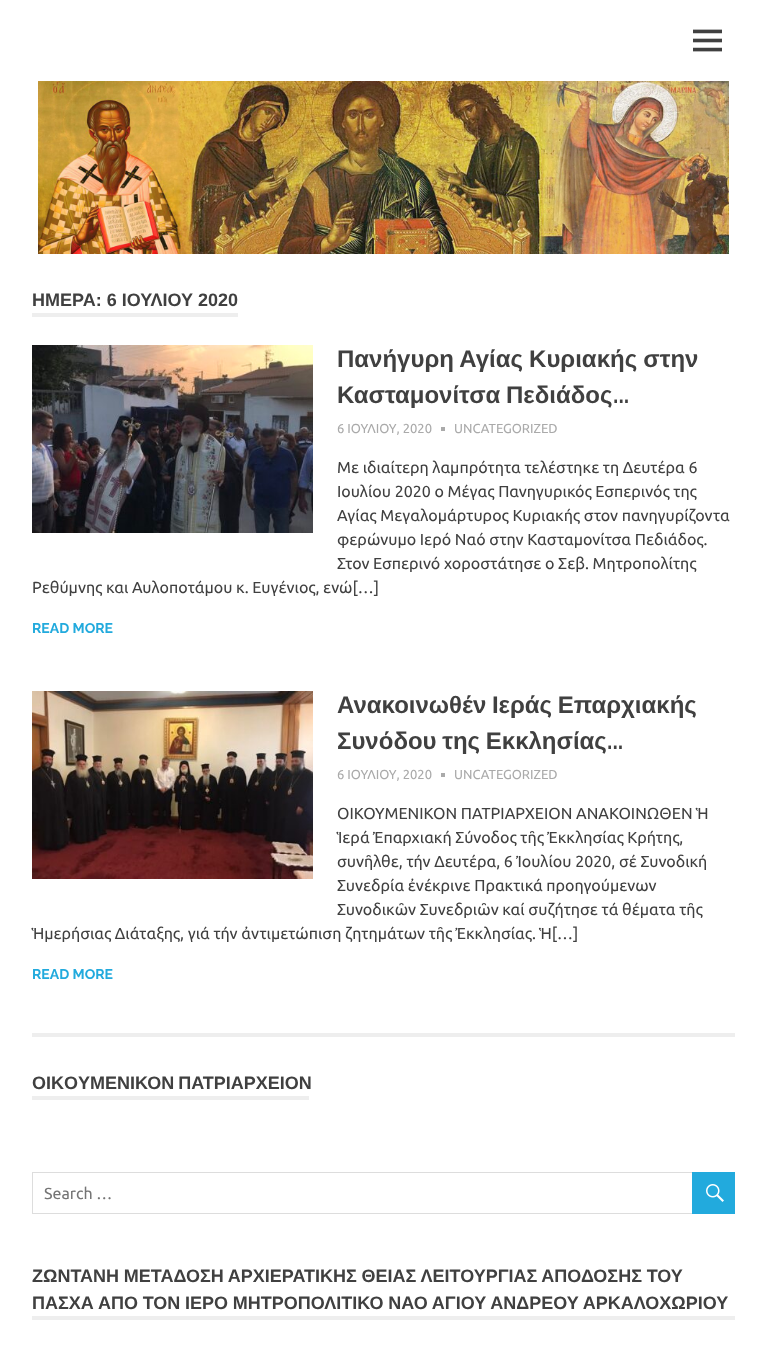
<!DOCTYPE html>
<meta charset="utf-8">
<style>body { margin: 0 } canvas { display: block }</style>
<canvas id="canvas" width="767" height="1365"></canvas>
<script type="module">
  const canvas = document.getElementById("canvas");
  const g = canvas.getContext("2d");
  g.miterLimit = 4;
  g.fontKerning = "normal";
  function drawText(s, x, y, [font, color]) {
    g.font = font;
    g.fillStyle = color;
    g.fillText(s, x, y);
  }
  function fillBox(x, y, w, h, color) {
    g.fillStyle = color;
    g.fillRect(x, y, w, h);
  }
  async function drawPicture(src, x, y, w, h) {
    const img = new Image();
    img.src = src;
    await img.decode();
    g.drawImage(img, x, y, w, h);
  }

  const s1 = ["bold 18px Liberation Sans", "#404040"];
  const s2 = ["bold 24px Liberation Sans", "#404040"];
  const s3 = ["bold 24px Raleway", "#404040"];
  const s4 = ["13px Ubuntu", "#AAAAAA"];
  const s5 = ["16px Ubuntu", "#404040"];
  const s6 = ["bold 14px Raleway", "#22AADD"];
  const s7 = ["16px Ubuntu", "#757575"];

  fillBox(0, 0, 767, 1365, "#FFFFFF");
  await drawPicture("pic1.png", 693, 29, 29, 23);
  await drawPicture("pic2.png", 38, 81, 691, 173);
  fillBox(32, 313, 206, 4, "#EEEEEE");
  drawText("ΗΜΕΡΑ: 6 ΙΟΥΛΙΟΥ 2020", 32, 306, s1);
  await drawPicture("pic3.png", 32, 345, 281, 188);
  g.wordSpacing = "-0.5px";
  drawText("Πανήγυρη Αγίας Κυριακής στην", 337, 367, s2);
  g.wordSpacing = "-1px";
  drawText("Κασταμονίτσα Πεδιάδος", 337, 403, s2);
  g.wordSpacing = "0px";
  drawText("...", 613, 403, s3);
  drawText("6 ΙΟΥΛΙΟΥ, 2020", 337, 433, s4);
  fillBox(441, 427, 4, 4, "#AAAAAA");
  drawText("UNCATEGORIZED", 454, 433, s4);
  drawText("Με ιδιαίτερη λαμπρότητα τελέστηκε τη Δευτέρα 6", 337, 473, s5);
  drawText("Ιουλίου 2020 ο Μέγας Πανηγυρικός Εσπερινός της", 337, 497, s5);
  drawText("Αγίας Μεγαλομάρτυρος Κυριακής στον πανηγυρίζοντα", 337, 521, s5);
  drawText("φερώνυμο Ιερό Ναό στην Κασταμονίτσα Πεδιάδος.", 337, 545, s5);
  drawText("Στον Εσπερινό χοροστάτησε ο Σεβ. Μητροπολίτης", 337, 569, s5);
  drawText("Ρεθύμνης και Αυλοποτάμου κ. Ευγένιος, ενώ[…]", 32, 593, s5);
  drawText("READ MORE", 32, 633, s6);
  await drawPicture("pic4.png", 32, 691, 281, 188);
  g.wordSpacing = "-1px";
  drawText("Ανακοινωθέν Ιεράς Επαρχιακής", 337, 713, s2);
  drawText("Συνόδου της Εκκλησίας", 337, 749, s2);
  g.wordSpacing = "0px";
  drawText("...", 607, 749, s3);
  drawText("6 ΙΟΥΛΙΟΥ, 2020", 337, 779, s4);
  fillBox(441, 773, 4, 4, "#AAAAAA");
  drawText("UNCATEGORIZED", 454, 779, s4);
  drawText("ΟΙΚΟΥΜΕΝΙΚΟΝ ΠΑΤΡΙΑΡΧΕΙΟΝ ΑΝΑΚΟΙΝΩΘΕΝ Ἡ", 337, 819, s5);
  drawText("Ἱερά Ἐπαρχιακή Σύνοδος τῆς Ἐκκλησίας Κρήτης,", 337, 843, s5);
  drawText("συνῆλθε, τήν Δευτέρα, 6 Ἰουλίου 2020, σέ Συνοδική", 337, 867, s5);
  drawText("Συνεδρία ἐνέκρινε Πρακτικά προηγούμενων", 337, 891, s5);
  drawText("Συνοδικῶν Συνεδριῶν καί συζήτησε τά θέματα τῆς", 337, 915, s5);
  drawText("Ἡμερήσιας Διάταξης, γιά τήν ἀντιμετώπιση ζητημάτων τῆς Ἐκκλησίας. Ἡ[…]", 32, 939, s5);
  drawText("READ MORE", 32, 979, s6);
  fillBox(32, 1033, 703, 4, "#EEEEEE");
  fillBox(32, 1096, 277, 4, "#EEEEEE");
  g.wordSpacing = "-1px";
  drawText("ΟΙΚOYΜEΝΙΚΟΝ ΠΑΤΡΙΑΡΧΕΙΟΝ", 32, 1089, s1);
  g.strokeStyle = "#DDDDDD";
  g.strokeRect(32.5, 1172.5, 702, 41);
  g.wordSpacing = "0px";
  drawText("Search …", 44, 1199, s7);
  fillBox(692, 1172, 43, 42, "#22AADD");
  await drawPicture("pic5.png", 706, 1184, 18, 18);
  fillBox(32, 1316, 703, 4, "#EEEEEE");
  g.wordSpacing = "-0.25px";
  drawText("ΖΩΝΤΑΝΗ ΜΕΤΑΔΟΣΗ ΑΡΧΙΕΡΑΤΙΚΗΣ ΘΕΙΑΣ ΛΕΙΤΟΥΡΓΙΑΣ ΑΠΟΔΟΣΗΣ ΤΟΥ", 32, 1282, s1);
  drawText("ΠΑΣΧΑ ΑΠΟ ΤΟΝ ΙΕΡΟ ΜΗΤΡΟΠΟΛΙΤΙΚΟ ΝΑΟ ΑΓΙΟΥ ΑΝΔΡΕΟΥ ΑΡΚΑΛΟΧΩΡΙΟΥ", 32, 1309, s1);
</script>
